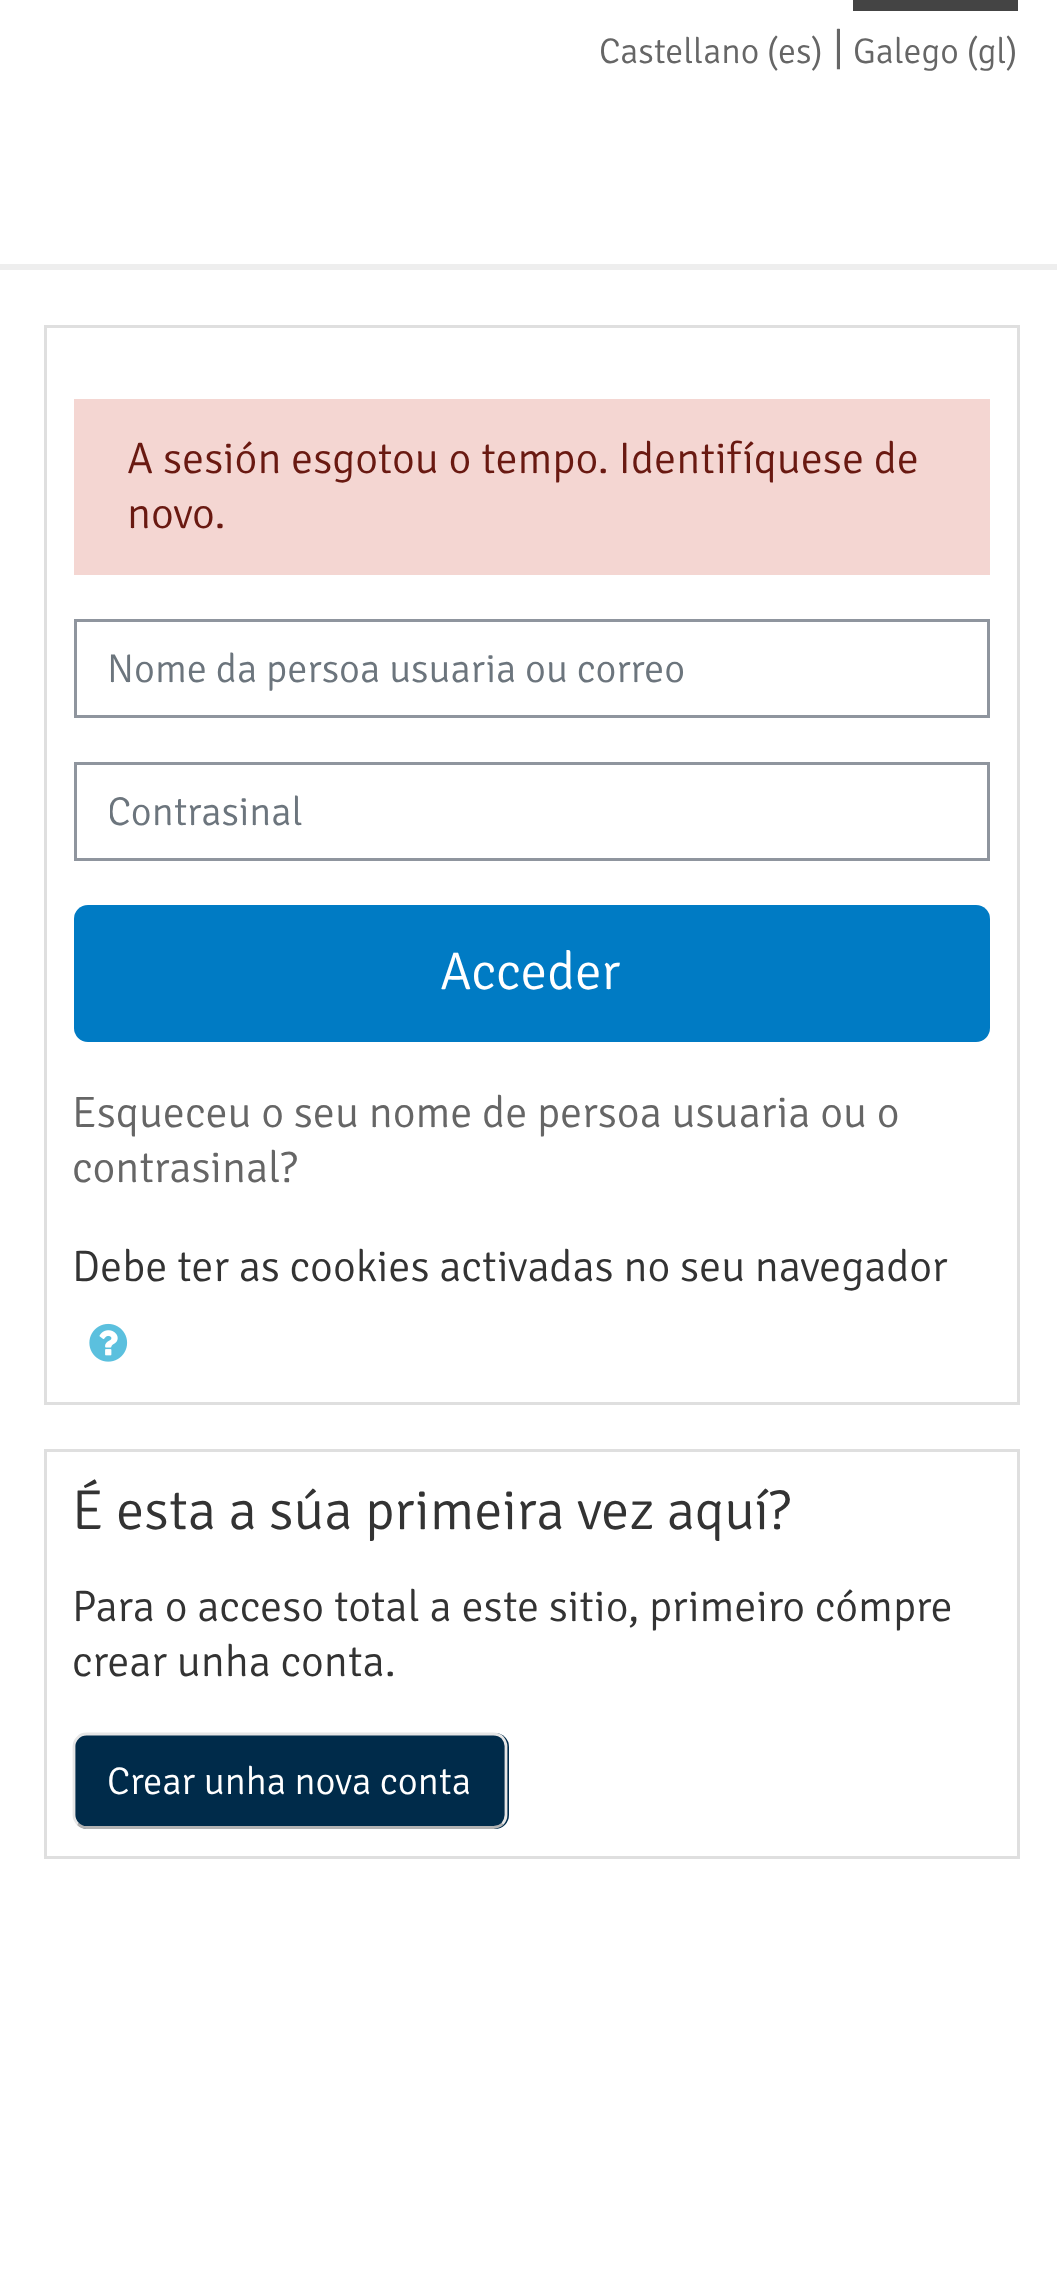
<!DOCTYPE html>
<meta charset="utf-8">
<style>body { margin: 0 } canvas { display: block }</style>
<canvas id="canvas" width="1057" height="2270"></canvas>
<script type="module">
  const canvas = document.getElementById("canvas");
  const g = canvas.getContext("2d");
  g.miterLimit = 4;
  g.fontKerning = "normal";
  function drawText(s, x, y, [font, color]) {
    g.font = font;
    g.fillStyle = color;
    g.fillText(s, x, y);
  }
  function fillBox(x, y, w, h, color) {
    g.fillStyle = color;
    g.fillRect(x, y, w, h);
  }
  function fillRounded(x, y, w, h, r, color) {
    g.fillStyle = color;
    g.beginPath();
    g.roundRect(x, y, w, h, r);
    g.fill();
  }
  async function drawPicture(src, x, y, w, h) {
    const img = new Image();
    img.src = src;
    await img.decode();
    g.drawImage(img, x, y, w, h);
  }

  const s1 = ["300 35.75px Signika", "#666666"];
  const s2 = ["300 44px Signika", "#666666"];
  const s3 = ["300 44px Signika", "#691911"];
  const s4 = ["300 40.25px Signika", "#6C757D"];
  const s5 = ["300 53px Signika", "#FFFFFF"];
  const s6 = ["300 44px Signika", "#333333"];
  const s7 = ["300 56.25px Signika", "#333333"];
  const s8 = ["300 38.5px Signika", "#FFFFFF"];

  fillBox(0, 0, 1057, 2270, "#FFFFFF");
  drawText("Castellano (es)", 599, 63, s1);
  drawText("|", 833, 63, s2);
  fillBox(853, 0, 165, 11, "#444444");
  drawText("Galego (gl)", 853, 63, s1);
  fillBox(0, 264, 1057, 6, "#EEEEEE");
  g.strokeStyle = "#DFDFDF";
  g.lineWidth = 3;
  g.strokeRect(45.5, 326.5, 973, 1077);
  fillBox(74, 399, 916, 176, "#F4D6D2");
  drawText("A sesión esgotou o tempo. Identifíquese de", 127, 473, s3);
  drawText("novo.", 127, 528, s3);
  g.strokeStyle = "#8F959E";
  g.strokeRect(75.5, 620.5, 913, 96);
  drawText("Nome da persoa usuaria ou correo", 107, 682, s4);
  g.strokeRect(75.5, 763.5, 913, 96);
  g.save();
  g.beginPath();
  g.rect(110, 787, 844, 49);
  g.clip();
  drawText("Contrasinal", 107, 825, s4);
  g.restore();
  fillRounded(74, 905, 916, 137, 14, "#007BC4");
  drawText("Acceder", 440, 989, s5);
  drawText("Esqueceu o seu nome de persoa usuaria ou o", 72, 1127, s2);
  drawText("contrasinal?", 72, 1182, s2);
  drawText("Debe ter as cookies activadas no seu navegador", 72, 1281, s6);
  await drawPicture("pic1.png", 89, 1323, 39, 39);
  g.strokeStyle = "#DFDFDF";
  g.strokeRect(45.5, 1450.5, 973, 407);
  drawText("É esta a súa primeira vez aquí?", 72, 1529, s7);
  drawText("Para o acceso total a este sitio, primeiro cómpre", 72, 1621, s6);
  drawText("crear unha conta.", 72, 1676, s6);
  fillRounded(74, 1733, 435, 96, 14, "#002B4A");
  g.beginPath();
  g.moveTo(502.5, 1824);
  g.bezierCurveTo(500, 1826, 497, 1827.5, 493.5, 1827.5);
  g.lineTo(86.5, 1827.5);
  g.bezierCurveTo(83.5, 1827.5, 80, 1826, 78, 1824);
  g.strokeStyle = "#B3B3B3";
  g.lineWidth = 2.8;
  g.stroke();
  g.beginPath();
  g.moveTo(78, 1824);
  g.bezierCurveTo(75.5, 1821.5, 74, 1818.5, 74, 1815);
  g.lineTo(74, 1746);
  g.bezierCurveTo(74, 1743, 75.5, 1740, 78, 1737.5);
  g.bezierCurveTo(80, 1735, 83.5, 1734, 86.5, 1734);
  g.lineTo(493.5, 1734);
  g.bezierCurveTo(497, 1734, 500, 1735, 502.5, 1737.5);
  g.bezierCurveTo(504.5, 1740, 506, 1743, 506, 1746);
  g.lineTo(506, 1815);
  g.bezierCurveTo(506, 1818.5, 504.5, 1821.5, 502.5, 1824);
  g.strokeStyle = "#E6E6E6";
  g.stroke();
  drawText("Crear unha nova conta", 107, 1794, s8);
</script>
